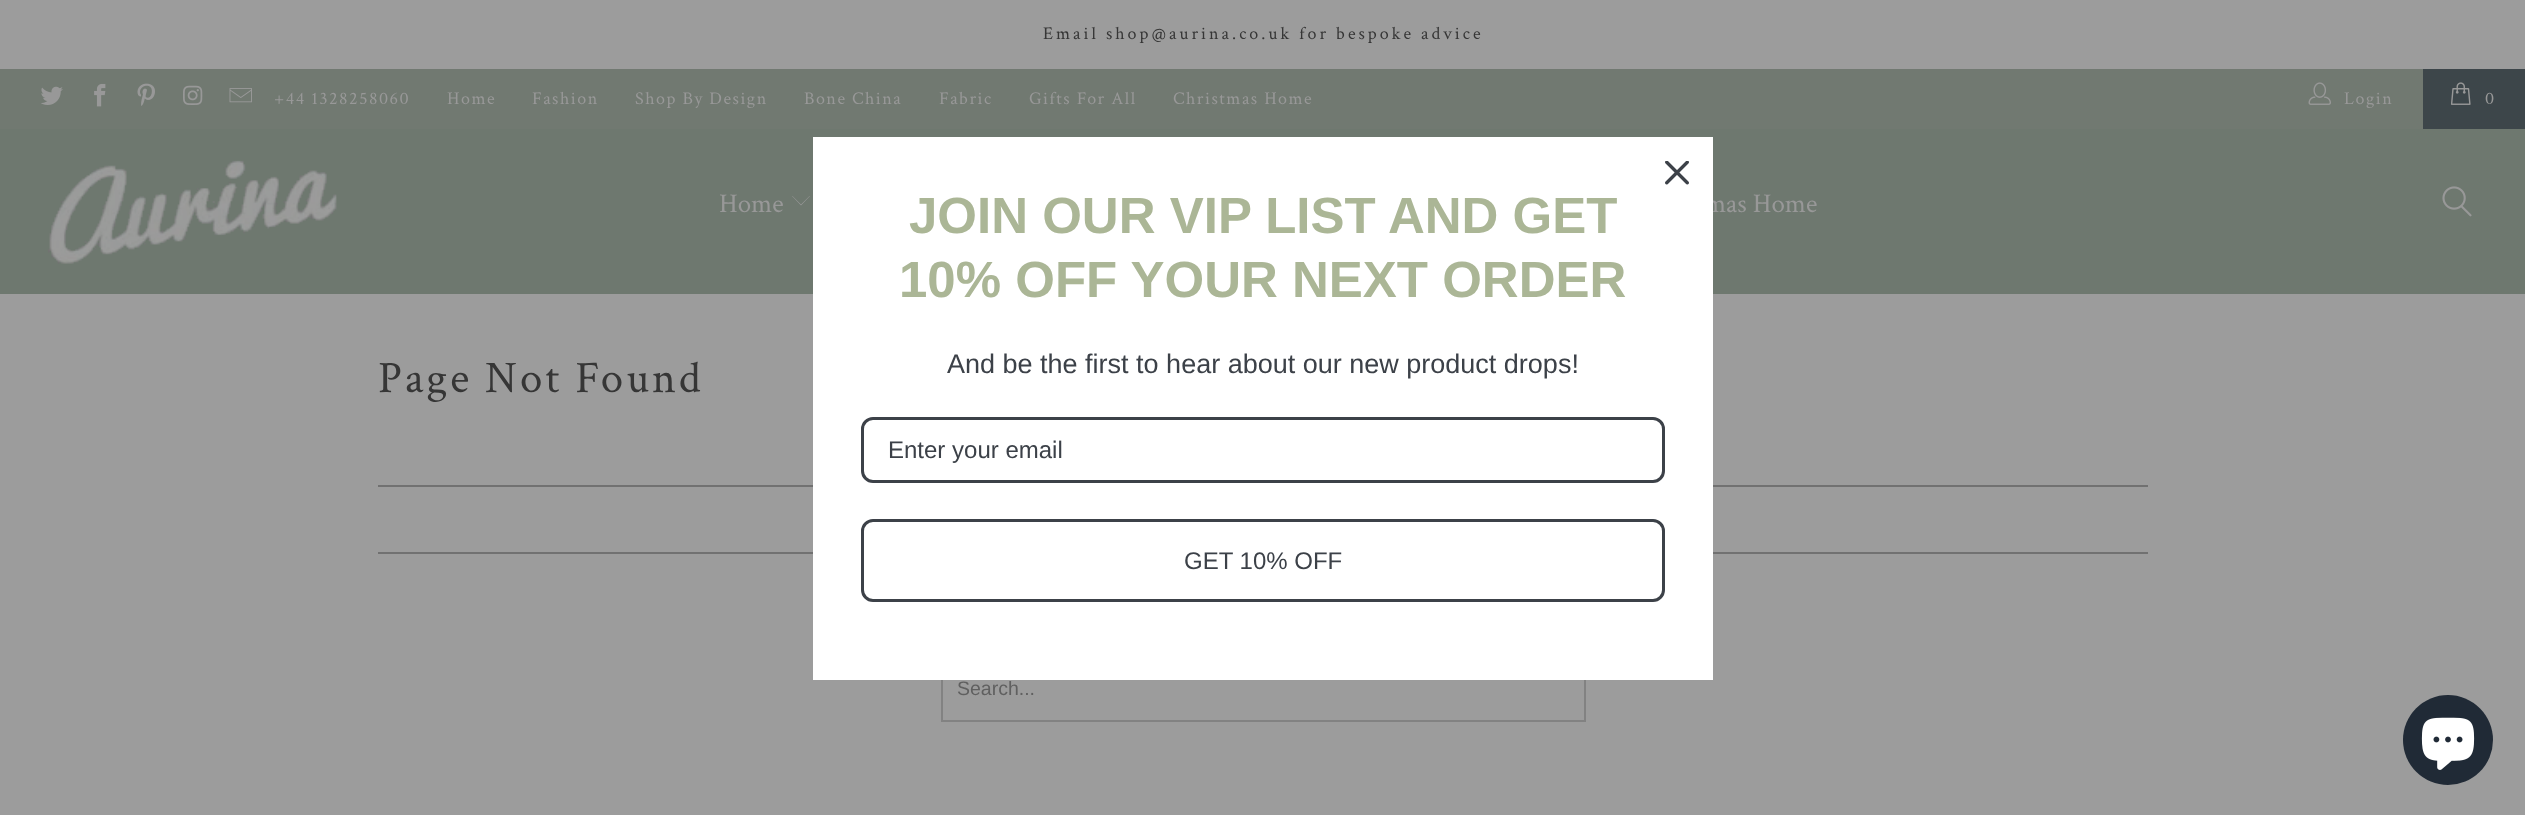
<!DOCTYPE html>
<meta charset="utf-8">
<style>body { margin: 0 } canvas { display: block }</style>
<canvas id="canvas" width="2525" height="815"></canvas>
<script type="module">
  const canvas = document.getElementById("canvas");
  const g = canvas.getContext("2d");
  g.miterLimit = 4;
  g.fontKerning = "normal";
  function drawText(s, x, y, [font, color]) {
    g.font = font;
    g.fillStyle = color;
    g.fillText(s, x, y);
  }
  function fillBox(x, y, w, h, color) {
    g.fillStyle = color;
    g.fillRect(x, y, w, h);
  }
  async function drawPicture(src, x, y, w, h) {
    const img = new Image();
    img.src = src;
    await img.decode();
    g.drawImage(img, x, y, w, h);
  }

  const s1 = ["18px Crimson Text", "#363636"];
  const s2 = ["18px Crimson Text", "#989898"];
  const s3 = ["27px Crimson Text", "#989898"];
  const s4 = ["45px Crimson Text", "#363636"];
  const s5 = ["19.5px Liberation Sans", "#606060"];
  const s6 = ["bold 51px Liberation Sans", "#ABB696"];
  const s7 = ["27px Liberation Sans", "#3C4148"];
  const s8 = ["24px Liberation Sans", "#3C4148"];

  fillBox(0, 0, 2525, 815, "#9C9C9C");
  g.letterSpacing = "3px";
  drawText("Email shop@aurina.co.uk for bespoke advice", 1043, 39, s1);
  fillBox(0, 69, 2423, 60, "#717971");
  await drawPicture("pic1.png", 41, 86, 22, 19);
  await drawPicture("pic2.png", 94, 83, 12, 24);
  await drawPicture("pic3.png", 137, 83, 18, 23);
  await drawPicture("pic4.png", 183, 85, 20, 20);
  await drawPicture("pic5.png", 229, 88, 23, 15);
  g.letterSpacing = "1.5px";
  drawText("+44 1328258060", 274, 104, s2);
  drawText("Home", 447, 104, s2);
  drawText("Fashion", 532, 104, s2);
  drawText("Shop By Design", 635, 104, s2);
  drawText("Bone China", 804, 104, s2);
  drawText("Fabric", 939, 104, s2);
  drawText("Gifts For All", 1029, 104, s2);
  drawText("Christmas Home", 1173, 104, s2);
  await drawPicture("pic6.png", 2308, 82, 23, 23);
  drawText("Login", 2344, 104, s2);
  fillBox(2423, 69, 102, 60, "#3D464A");
  await drawPicture("pic7.png", 2450, 82, 21, 23);
  drawText("0", 2485, 104, s2);
  fillBox(0, 129, 2525, 165, "#6E786F");
  await drawPicture("pic8.png", 48, 160, 289, 104);
  g.letterSpacing = "0px";
  drawText("Home", 719, 212, s3);
  g.beginPath();
  g.moveTo(801, 205.5);
  g.lineTo(792, 196);
  g.lineTo(792.5, 196);
  g.lineTo(801, 204.5);
  g.lineTo(809.5, 196);
  g.lineTo(810, 196);
  g.closePath();
  g.fill();
  drawText("mas Home", 1705, 212, s3);
  await drawPicture("pic9.png", 2442, 186, 30, 31);
  g.letterSpacing = "3px";
  drawText("Page Not Found", 378, 392, s4);
  fillBox(378, 485, 1770, 2, "#717171");
  fillBox(378, 552, 1770, 2, "#717171");
  g.strokeStyle = "#828282";
  g.lineWidth = 2;
  g.strokeRect(942, 657, 643, 64);
  g.letterSpacing = "0px";
  drawText("Search...", 957, 695, s5);
  fillBox(813, 137, 900, 543, "#FFFFFF");
  await drawPicture("pic10.png", 1665, 161, 24, 24);
  drawText("JOIN OUR VIP LIST AND GET", 909, 233, s6);
  drawText("10% OFF YOUR NEXT ORDER", 899, 297, s6);
  drawText("And be the first to hear about our new product drops!", 947, 373, s7);
  g.beginPath();
  g.roundRect(862.5, 418.5, 801, 63, 10.5);
  g.strokeStyle = "#3C4148";
  g.lineWidth = 3;
  g.stroke();
  drawText("Enter your email", 888, 458, s8);
  g.beginPath();
  g.roundRect(862.5, 520.5, 801, 80, 10.5);
  g.stroke();
  drawText("GET 10% OFF", 1184, 569, s8);
  g.fillStyle = "#202A36";
  g.beginPath();
  g.arc(2448, 740, 45, 0, Math.PI * 2);
  g.fill();
  await drawPicture("pic11.png", 2421, 717, 54, 53);
</script>
